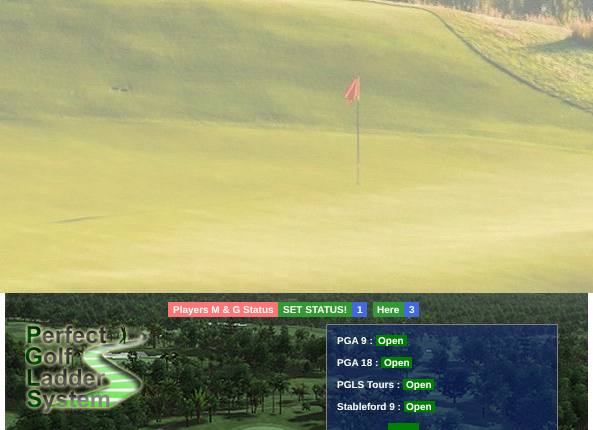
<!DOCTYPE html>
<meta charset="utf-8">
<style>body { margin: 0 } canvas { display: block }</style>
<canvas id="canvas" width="593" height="430"></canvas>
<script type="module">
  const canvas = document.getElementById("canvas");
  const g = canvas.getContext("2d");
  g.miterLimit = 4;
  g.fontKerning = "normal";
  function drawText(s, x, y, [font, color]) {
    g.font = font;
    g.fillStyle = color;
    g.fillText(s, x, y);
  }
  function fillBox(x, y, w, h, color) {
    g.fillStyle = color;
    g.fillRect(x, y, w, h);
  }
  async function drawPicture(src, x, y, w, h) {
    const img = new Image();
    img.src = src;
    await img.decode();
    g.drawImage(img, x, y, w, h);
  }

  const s1 = ["bold 10px Liberation Sans", "#FFFFFF"];

  fillBox(0, 0, 593, 430, "#F5F7FA");
  await drawPicture("pic1.png", 0, 0, 593, 293);
  fillBox(0, 293, 593, 137, "#FFFFFF");
  await drawPicture("pic2.png", 5, 293, 583, 137);
  fillBox(168, 302, 110, 15, "#FF7575");
  drawText("Players M & G Status", 173, 313, s1);
  fillBox(278, 302, 74, 15, "#339933");
  drawText("SET STATUS!", 283, 313, s1);
  fillBox(352, 302, 15, 15, "#4169E1");
  drawText("1", 357, 313, s1);
  fillBox(373, 302, 31, 15, "#339933");
  drawText("Here", 377, 313, s1);
  fillBox(404, 302, 15, 15, "#4169E1");
  drawText("3", 409, 313, s1);
  await drawPicture("pic3.png", 25, 324, 125, 90);
  g.fillStyle = "rgba(10, 40, 126, 0.5)";
  g.beginPath();
  g.rect(326.5, 324.5, 231, 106);
  g.fill();
  g.strokeStyle = "#808080";
  g.stroke();
  drawText("PGA 9 :", 337, 344, s1);
  fillBox(376, 335, 31, 11, "#008000");
  drawText("Open", 378, 344, s1);
  drawText("PGA 18 :", 337, 366, s1);
  fillBox(381, 357, 31, 11, "#008000");
  drawText("Open", 384, 366, s1);
  drawText("PGLS Tours :", 337, 388, s1);
  fillBox(403, 379, 31, 11, "#008000");
  drawText("Open", 406, 388, s1);
  drawText("Stableford 9 :", 337, 410, s1);
  fillBox(404, 401, 31, 11, "#008000");
  drawText("Open", 406, 410, s1);
  fillBox(388, 423, 31, 7, "#008000");
</script>
